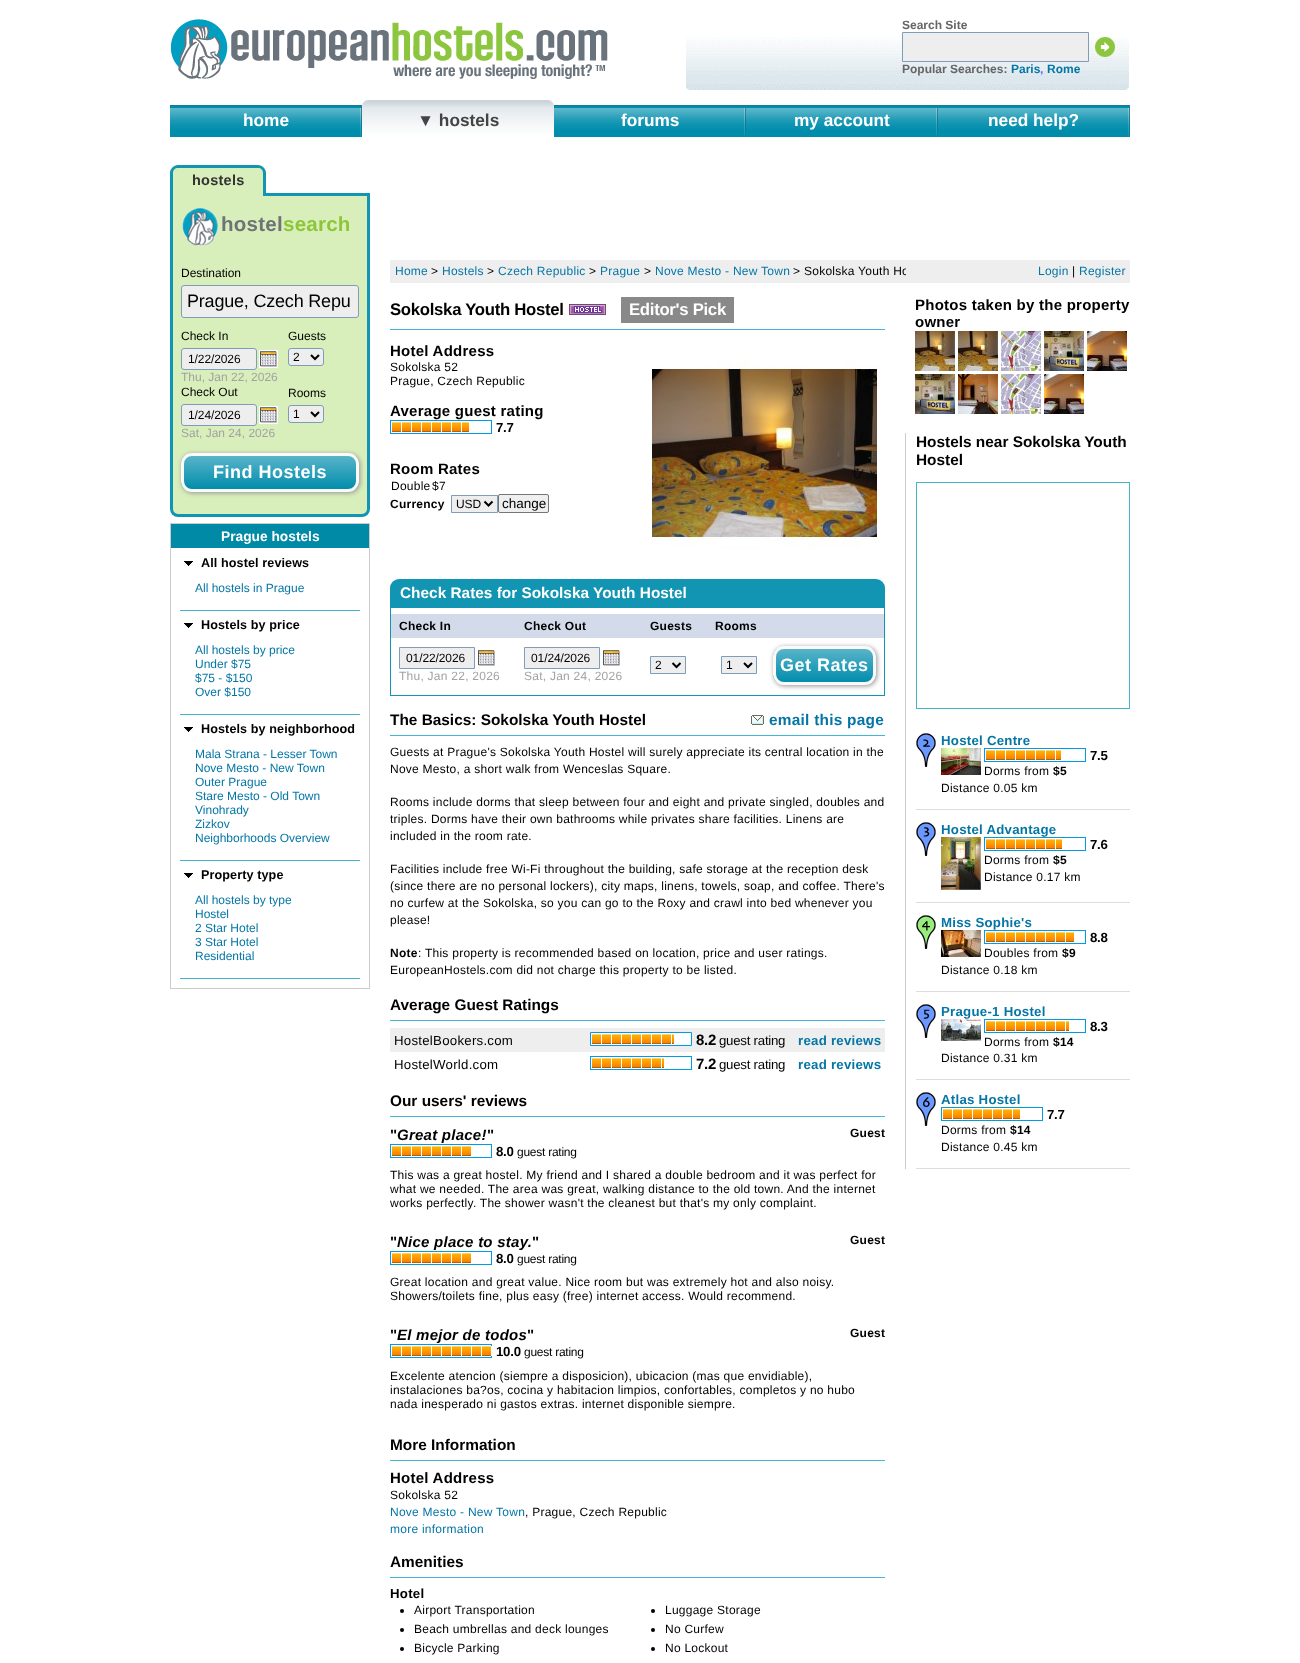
<!DOCTYPE html>
<meta charset="utf-8">
<style>body { margin: 0 } canvas { display: block }</style>
<canvas id="canvas" width="1300" height="1663"></canvas>
<script type="module">
  const canvas = document.getElementById("canvas");
  const g = canvas.getContext("2d");
  g.miterLimit = 4;
  g.fontKerning = "normal";
  function drawText(s, x, y, [font, color]) {
    g.font = font;
    g.fillStyle = color;
    g.fillText(s, x, y);
  }
  function fillBox(x, y, w, h, color) {
    g.fillStyle = color;
    g.fillRect(x, y, w, h);
  }
  async function drawPicture(src, x, y, w, h) {
    const img = new Image();
    img.src = src;
    await img.decode();
    g.drawImage(img, x, y, w, h);
  }
  let gradient;

  const s1 = ["bold 12px Liberation Sans", "#666666"];
  const s2 = ["bold 12px Liberation Sans", "#0476A6"];
  const s3 = ["bold 12px Liberation Sans", "#6666FF"];
  const s4 = ["bold 17.25px Liberation Sans", "#FFFFFF"];
  const s5 = ["bold 17.25px Liberation Sans", "#444444"];
  const s6 = ["bold 14.5px Liberation Sans", "#333333"];
  const s7 = ["bold 20.5px Liberation Sans", "#6E7377"];
  const s8 = ["bold 20.5px Liberation Sans", "#8EC639"];
  const s9 = ["12px Liberation Sans", "#000000"];
  const s10 = ["18px Liberation Sans", "#000000"];
  const s11 = ["12px Liberation Sans", "#A2A2A2"];
  const s12 = ["bold 18px Liberation Sans", "#FFFFFF"];
  const s13 = ["bold 13.75px Liberation Sans", "#FFFFFF"];
  const s14 = ["bold 12.6px Liberation Sans", "#000000"];
  const s15 = ["12px Liberation Sans", "#0476A6"];
  const s16 = ["bold 16.75px Liberation Sans", "#000000"];
  const s17 = ["bold 16.75px Liberation Sans", "#FFFFFF"];
  const s18 = ["bold 15px Liberation Sans", "#000000"];
  const s19 = ["bold 13.25px Liberation Sans", "#000000"];
  const s20 = ["bold 12px Liberation Sans", "#000000"];
  const s21 = ["13.5px Liberation Sans", "#000000"];
  const s22 = ["bold 15.4px Liberation Sans", "#FFFFFF"];
  const s23 = ["bold 15.4px Liberation Sans", "#000000"];
  const s24 = ["bold 15.4px Liberation Sans", "#0476A6"];
  const s25 = ["13.25px Liberation Sans", "#000000"];
  const s26 = ["bold 13.25px Liberation Sans", "#0476A6"];
  const s27 = ["italic bold 15px Liberation Sans", "#000000"];

  fillBox(0, 0, 1300, 1663, "#FFFFFF");
  await drawPicture("pic1.png", 171, 19, 437, 60);
  await drawPicture("pic2.png", 686, 36, 443, 54);
  drawText("Search Site", 902, 29, s1);
  g.fillStyle = "#EEEEEE";
  g.beginPath();
  g.rect(902.5, 32.5, 186, 29);
  g.fill();
  g.strokeStyle = "#7F9DB9";
  g.stroke();
  await drawPicture("pic3.png", 1095, 37, 20, 20);
  drawText("Popular Searches:", 902, 73, s1);
  drawText("Paris", 1011, 73, s2);
  drawText(",", 1040, 73, s3);
  drawText("Rome", 1047, 73, s2);
  fillBox(170, 130, 190, 7, "#008DAC");
  await drawPicture("pic4.png", 170, 100, 192, 30);
  await drawPicture("pic5.png", 360, 108, 2, 29);
  drawText("home", 243, 126, s4);
  await drawPicture("pic6.png", 362, 100, 192, 44);
  await drawPicture("pic7.png", 548, 100, 6, 6);
  drawText("▼ hostels", 417, 126, s5);
  fillBox(554, 130, 190, 7, "#008DAC");
  await drawPicture("pic4.png", 554, 100, 192, 30);
  await drawPicture("pic5.png", 744, 108, 2, 29);
  drawText("forums", 621, 126, s4);
  fillBox(746, 130, 190, 7, "#008DAC");
  await drawPicture("pic4.png", 746, 100, 192, 30);
  await drawPicture("pic5.png", 936, 108, 2, 29);
  drawText("my account", 794, 126, s4);
  fillBox(938, 130, 190, 7, "#008DAC");
  await drawPicture("pic4.png", 938, 100, 192, 30);
  await drawPicture("pic5.png", 1128, 108, 2, 29);
  drawText("need help?", 988, 126, s4);
  g.fillStyle = "#D9EFBB";
  g.beginPath();
  g.roundRect(171.5, 194.5, 197, 321, [0, 0, 6.5, 6.5]);
  g.fill();
  g.strokeStyle = "#1295B2";
  g.lineWidth = 3;
  g.stroke();
  g.beginPath();
  g.roundRect(170, 165, 96, 31, [8, 8, 0, 0]);
  g.fill();
  g.fillStyle = "#1295B2";
  g.beginPath();
  g.moveTo(178, 165);
  g.lineTo(258, 165);
  g.bezierCurveTo(262, 165, 266, 169, 266, 173);
  g.lineTo(266, 196);
  g.lineTo(170, 196);
  g.lineTo(170, 173);
  g.bezierCurveTo(170, 169, 174, 165, 178, 165);
  g.closePath();
  g.moveTo(178, 168);
  g.lineTo(258, 168);
  g.bezierCurveTo(261, 168, 263, 170, 263, 173);
  g.lineTo(263, 196);
  g.lineTo(173, 196);
  g.lineTo(173, 173);
  g.bezierCurveTo(173, 170, 175, 168, 178, 168);
  g.closePath();
  g.fill("evenodd");
  g.letterSpacing = "0.25px";
  drawText("hostels", 192, 185, s6);
  await drawPicture("pic8.png", 182, 208, 37, 38);
  drawText("hostel", 221, 231, s7);
  drawText("search", 283, 231, s8);
  g.letterSpacing = "0px";
  drawText("Destination", 181, 277, s9);
  g.fillStyle = "#EEEEEE";
  g.beginPath();
  g.roundRect(181.5, 285.5, 177, 32, 2.5);
  g.fill();
  g.strokeStyle = "#7F9DB9";
  g.lineWidth = 1;
  g.stroke();
  g.letterSpacing = "-0.2px";
  drawText("Prague, Czech Repu", 187, 307, s10);
  g.letterSpacing = "0px";
  drawText("Check In", 181, 340, s9);
  g.fillStyle = "#EEEEEE";
  g.beginPath();
  g.roundRect(181.5, 348.5, 75, 21, 2.5);
  g.fill();
  g.stroke();
  g.letterSpacing = "-0.1px";
  drawText("1/22/2026", 188, 363, s9);
  await drawPicture("pic9.png", 259, 350, 19, 18);
  g.letterSpacing = "0px";
  drawText("Thu, Jan 22, 2026", 181, 381, s11);
  drawText("Check Out", 181, 396, s9);
  g.fillStyle = "#EEEEEE";
  g.beginPath();
  g.roundRect(181.5, 404.5, 75, 21, 2.5);
  g.fill();
  g.stroke();
  g.letterSpacing = "-0.1px";
  drawText("1/24/2026", 188, 419, s9);
  await drawPicture("pic9.png", 259, 406, 19, 18);
  g.letterSpacing = "0px";
  drawText("Sat, Jan 24, 2026", 181, 437, s11);
  drawText("Guests", 288, 340, s9);
  g.fillStyle = "#EEEEEE";
  g.beginPath();
  g.roundRect(288.5, 348.5, 35, 17, 2.5);
  g.fill();
  g.stroke();
  g.beginPath();
  g.moveTo(311, 355);
  g.lineTo(315, 359);
  g.lineTo(319, 355);
  g.strokeStyle = "#000000";
  g.lineWidth = 2;
  g.stroke();
  g.letterSpacing = "-0.1px";
  drawText("2", 293, 361, s9);
  g.letterSpacing = "0px";
  drawText("Rooms", 288, 397, s9);
  g.fillStyle = "#EEEEEE";
  g.beginPath();
  g.roundRect(288.5, 405.5, 35, 17, 2.5);
  g.fill();
  g.strokeStyle = "#7F9DB9";
  g.lineWidth = 1;
  g.stroke();
  g.beginPath();
  g.moveTo(311, 412);
  g.lineTo(315, 416);
  g.lineTo(319, 412);
  g.strokeStyle = "#000000";
  g.lineWidth = 2;
  g.stroke();
  g.letterSpacing = "-0.1px";
  drawText("1", 293, 418, s9);
  g.fillStyle = "#939393";
  g.filter = "blur(2.5px)";
  g.beginPath();
  g.roundRect(182, 454, 178, 39, 11);
  g.fill();
  g.filter = "none";
  g.save();
  g.beginPath();
  g.roundRect(181, 453, 178, 39, 11);
  g.clip();
  gradient = g.createLinearGradient(184, 456, 184, 489);
  gradient.addColorStop(0, "#58B4C9");
  gradient.addColorStop(1, "#018DAC");
  g.fillStyle = gradient;
  g.fillRect(181, 456, 178, 33);
  g.restore();
  g.beginPath();
  g.roundRect(182.5, 454.5, 175, 36, 9.5);
  g.strokeStyle = "#FAFAFA";
  g.lineWidth = 3;
  g.stroke();
  g.letterSpacing = "0.5px";
  drawText("Find Hostels", 213, 478, s12);
  g.strokeStyle = "#CCCCCC";
  g.lineWidth = 1;
  g.strokeRect(170.5, 523.5, 199, 465);
  fillBox(171, 524, 198, 24, "#008AA6");
  g.letterSpacing = "0px";
  drawText("Prague hostels", 221, 541, s13);
  await drawPicture("pic10.png", 184, 561, 9, 5);
  g.letterSpacing = "0.1px";
  drawText("All hostel reviews", 201, 567, s14);
  fillBox(180, 610, 180, 1, "#46B3D4");
  g.letterSpacing = "0px";
  drawText("All hostels in Prague", 195, 592, s15);
  await drawPicture("pic10.png", 184, 623, 9, 5);
  g.letterSpacing = "0.1px";
  drawText("Hostels by price", 201, 629, s14);
  fillBox(180, 714, 180, 1, "#46B3D4");
  g.letterSpacing = "0px";
  drawText("All hostels by price", 195, 654, s15);
  drawText("Under $75", 195, 668, s15);
  drawText("$75 - $150", 195, 682, s15);
  drawText("Over $150", 195, 696, s15);
  await drawPicture("pic10.png", 184, 727, 9, 5);
  g.letterSpacing = "0.1px";
  drawText("Hostels by neighborhood", 201, 733, s14);
  fillBox(180, 860, 180, 1, "#46B3D4");
  g.letterSpacing = "0px";
  drawText("Mala Strana - Lesser Town", 195, 758, s15);
  drawText("Nove Mesto - New Town", 195, 772, s15);
  drawText("Outer Prague", 195, 786, s15);
  drawText("Stare Mesto - Old Town", 195, 800, s15);
  drawText("Vinohrady", 195, 814, s15);
  drawText("Zizkov", 195, 828, s15);
  drawText("Neighborhoods Overview", 195, 842, s15);
  await drawPicture("pic10.png", 184, 873, 9, 5);
  g.letterSpacing = "0.1px";
  drawText("Property type", 201, 879, s14);
  fillBox(180, 978, 180, 1, "#46B3D4");
  g.letterSpacing = "0px";
  drawText("All hostels by type", 195, 904, s15);
  drawText("Hostel", 195, 918, s15);
  drawText("2 Star Hotel", 195, 932, s15);
  drawText("3 Star Hotel", 195, 946, s15);
  drawText("Residential", 195, 960, s15);
  fillBox(390, 260, 740, 23, "#EEEEEE");
  g.letterSpacing = "0.25px";
  drawText("Home", 395, 275, s15);
  drawText(">", 431, 275, s9);
  drawText("Hostels", 442, 275, s15);
  drawText(">", 487, 275, s9);
  drawText("Czech Republic", 498, 275, s15);
  drawText(">", 589, 275, s9);
  drawText("Prague", 600, 275, s15);
  drawText(">", 644, 275, s9);
  drawText("Nove Mesto - New Town", 655, 275, s15);
  drawText(">", 793, 275, s9);
  g.save();
  g.beginPath();
  g.rect(395, 264, 511, 14);
  g.clip();
  drawText("Sokolska Youth Ho", 804, 275, s9);
  g.restore();
  drawText("Login", 1038, 275, s15);
  drawText("|", 1072, 275, s9);
  drawText("Register", 1079, 275, s15);
  fillBox(390, 329, 495, 1, "#41B6D6");
  g.letterSpacing = "-0.3px";
  drawText("Sokolska Youth Hostel", 390, 315, s16);
  await drawPicture("pic11.png", 569, 304, 37, 11);
  fillBox(621, 297, 113, 26, "#898989");
  drawText("Editor's Pick", 629, 315, s17);
  g.letterSpacing = "0.25px";
  drawText("Hotel Address", 390, 356, s18);
  drawText("Sokolska 52", 390, 371, s9);
  drawText("Prague, Czech Republic", 390, 385, s9);
  drawText("Average guest rating", 390, 416, s18);
  g.strokeStyle = "#019BE4";
  g.strokeRect(390.5, 420.5, 101, 13);
  await drawPicture("pic12.png", 392, 422, 77, 10);
  g.letterSpacing = "-0.25px";
  drawText("7.7", 496, 432, s19);
  await drawPicture("pic13.png", 652, 359, 225, 190);
  g.letterSpacing = "0.25px";
  drawText("Room Rates", 390, 474, s18);
  drawText("Double", 391, 490, s9);
  drawText("$7", 432, 490, s9);
  drawText("Currency", 390, 508, s20);
  g.fillStyle = "#EEEEEE";
  g.beginPath();
  g.rect(451.5, 495.5, 46, 17);
  g.fill();
  g.strokeStyle = "#7F9DB9";
  g.stroke();
  g.beginPath();
  g.moveTo(484.5, 501.5);
  g.lineTo(488.5, 505.5);
  g.lineTo(492.5, 501.5);
  g.strokeStyle = "#000000";
  g.lineWidth = 2;
  g.stroke();
  g.letterSpacing = "-0.1px";
  drawText("USD", 456, 508, s9);
  g.fillStyle = "#EFEFEF";
  g.beginPath();
  g.roundRect(498.5, 494.5, 50, 18, 1.5);
  g.fill();
  g.strokeStyle = "#767676";
  g.lineWidth = 1;
  g.stroke();
  g.letterSpacing = "0px";
  drawText("change", 502, 508, s21);
  g.fillStyle = "#1295B2";
  g.beginPath();
  g.roundRect(390, 579, 495, 28, [9, 9, 0, 0]);
  g.fill();
  drawText("Check Rates for Sokolska Youth Hostel", 400, 598, s22);
  g.strokeStyle = "#1295B2";
  g.strokeRect(390.5, 607.5, 494, 88);
  fillBox(391, 614, 493, 24, "#D3DBEB");
  g.letterSpacing = "0.25px";
  drawText("Check In", 399, 630, s20);
  drawText("Check Out", 524, 630, s20);
  drawText("Guests", 650, 630, s20);
  drawText("Rooms", 715, 630, s20);
  g.fillStyle = "#EEEEEE";
  g.beginPath();
  g.rect(399.5, 647.5, 75, 21);
  g.fill();
  g.strokeStyle = "#7F9DB9";
  g.stroke();
  g.letterSpacing = "-0.1px";
  drawText("01/22/2026", 406, 662, s9);
  await drawPicture("pic14.png", 478, 650, 17, 16);
  g.letterSpacing = "0.25px";
  drawText("Thu, Jan 22, 2026", 399, 680, s11);
  g.fillStyle = "#EEEEEE";
  g.beginPath();
  g.rect(524.5, 647.5, 75, 21);
  g.fill();
  g.stroke();
  g.letterSpacing = "-0.1px";
  drawText("01/24/2026", 531, 662, s9);
  await drawPicture("pic14.png", 603, 650, 17, 16);
  g.letterSpacing = "0.25px";
  drawText("Sat, Jan 24, 2026", 524, 680, s11);
  g.fillStyle = "#EEEEEE";
  g.beginPath();
  g.rect(650.5, 656.5, 35, 17);
  g.fill();
  g.stroke();
  g.beginPath();
  g.moveTo(672.5, 663);
  g.lineTo(676.5, 667);
  g.lineTo(680.5, 663);
  g.strokeStyle = "#000000";
  g.lineWidth = 2;
  g.stroke();
  g.letterSpacing = "-0.1px";
  drawText("2", 655, 669, s9);
  g.fillStyle = "#EEEEEE";
  g.beginPath();
  g.rect(721.5, 656.5, 35, 17);
  g.fill();
  g.strokeStyle = "#7F9DB9";
  g.lineWidth = 1;
  g.stroke();
  g.beginPath();
  g.moveTo(744, 663);
  g.lineTo(748, 667);
  g.lineTo(752, 663);
  g.strokeStyle = "#000000";
  g.lineWidth = 2;
  g.stroke();
  drawText("1", 726, 669, s9);
  g.fillStyle = "#939393";
  g.filter = "blur(2.5px)";
  g.beginPath();
  g.roundRect(774, 647, 103, 39, 11);
  g.fill();
  g.filter = "none";
  g.save();
  g.beginPath();
  g.roundRect(773, 646, 103, 39, 11);
  g.clip();
  gradient = g.createLinearGradient(776, 649, 776, 682);
  gradient.addColorStop(0, "#58B4C9");
  gradient.addColorStop(1, "#018DAC");
  g.fillStyle = gradient;
  g.fillRect(773, 649, 103, 33);
  g.restore();
  g.beginPath();
  g.roundRect(774.5, 647.5, 100, 36, 9.5);
  g.strokeStyle = "#FAFAFA";
  g.lineWidth = 3;
  g.stroke();
  g.letterSpacing = "0.5px";
  drawText("Get Rates", 780, 671, s12);
  fillBox(390, 735, 495, 1, "#41B6D6");
  g.letterSpacing = "0px";
  drawText("The Basics: Sokolska Youth Hostel", 390, 725, s23);
  await drawPicture("pic15.png", 751, 715, 13, 10);
  g.letterSpacing = "0.25px";
  drawText("email this page", 769, 725, s24);
  drawText("Guests at Prague's Sokolska Youth Hostel will surely appreciate its central location in the", 390, 756, s9);
  drawText("Nove Mesto, a short walk from Wenceslas Square.", 390, 773, s9);
  drawText("Rooms include dorms that sleep between four and eight and private singled, doubles and", 390, 806, s9);
  drawText("triples. Dorms have their own bathrooms while privates share facilities. Linens are", 390, 823, s9);
  drawText("included in the room rate.", 390, 840, s9);
  drawText("Facilities include free Wi-Fi throughout the building, safe storage at the reception desk", 390, 873, s9);
  drawText("(since there are no personal lockers), city maps, linens, towels, soap, and coffee. There's", 390, 890, s9);
  drawText("no curfew at the Sokolska, so you can go to the Roxy and crawl into bed whenever you", 390, 907, s9);
  drawText("please!", 390, 924, s9);
  drawText("Note", 390, 957, s20);
  drawText(": This property is recommended based on location, price and user ratings.", 418, 957, s9);
  drawText("EuropeanHostels.com did not charge this property to be listed.", 390, 974, s9);
  fillBox(390, 1020, 495, 1, "#41B6D6");
  g.letterSpacing = "0px";
  drawText("Average Guest Ratings", 390, 1010, s23);
  fillBox(390, 1028, 495, 24, "#EEEEEE");
  g.letterSpacing = "0.25px";
  drawText("HostelBookers.com", 394, 1045, s25);
  g.fillStyle = "#FFFFFF";
  g.beginPath();
  g.rect(590.5, 1032.5, 101, 13);
  g.fill();
  g.strokeStyle = "#019BE4";
  g.lineWidth = 1;
  g.stroke();
  await drawPicture("pic16.png", 592, 1034, 82, 10);
  g.letterSpacing = "-0.25px";
  drawText("8.2", 696, 1045, s18);
  drawText("guest rating", 719, 1045, s25);
  g.letterSpacing = "0.25px";
  drawText("read reviews", 798, 1045, s26);
  drawText("HostelWorld.com", 394, 1069, s25);
  g.strokeRect(590.5, 1056.5, 101, 13);
  await drawPicture("pic17.png", 592, 1058, 72, 10);
  g.letterSpacing = "-0.25px";
  drawText("7.2", 696, 1069, s18);
  drawText("guest rating", 719, 1069, s25);
  g.letterSpacing = "0.25px";
  drawText("read reviews", 798, 1069, s26);
  fillBox(390, 1116, 495, 1, "#41B6D6");
  g.letterSpacing = "0px";
  drawText("Our users' reviews", 390, 1106, s23);
  g.letterSpacing = "0.25px";
  drawText("\"", 390, 1140, s18);
  drawText("Great place!", 397, 1140, s27);
  drawText("\"", 487, 1140, s18);
  g.strokeRect(390.5, 1144.5, 101, 13);
  await drawPicture("pic18.png", 392, 1146, 79, 10);
  g.letterSpacing = "-0.25px";
  drawText("8.0", 496, 1156, s19);
  drawText("guest rating", 517, 1156, s9);
  g.letterSpacing = "0.25px";
  drawText("Guest", 850, 1137, s20);
  drawText("This was a great hostel. My friend and I shared a double bedroom and it was perfect for", 390, 1179, s9);
  drawText("what we needed. The area was great, walking distance to the old town. And the internet", 390, 1193, s9);
  drawText("works perfectly. The shower wasn't the cleanest but that's my only complaint.", 390, 1207, s9);
  drawText("\"", 390, 1247, s18);
  drawText("Nice place to stay.", 397, 1247, s27);
  drawText("\"", 532, 1247, s18);
  g.strokeRect(390.5, 1251.5, 101, 13);
  await drawPicture("pic18.png", 392, 1253, 79, 10);
  g.letterSpacing = "-0.25px";
  drawText("8.0", 496, 1263, s19);
  drawText("guest rating", 517, 1263, s9);
  g.letterSpacing = "0.25px";
  drawText("Guest", 850, 1244, s20);
  drawText("Great location and great value. Nice room but was extremely hot and also noisy.", 390, 1286, s9);
  drawText("Showers/toilets fine, plus easy (free) internet access. Would recommend.", 390, 1300, s9);
  drawText("\"", 390, 1340, s18);
  drawText("El mejor de todos", 397, 1340, s27);
  drawText("\"", 527, 1340, s18);
  g.strokeRect(390.5, 1344.5, 101, 13);
  await drawPicture("pic19.png", 392, 1346, 100, 10);
  g.letterSpacing = "-0.25px";
  drawText("10.0", 496, 1356, s19);
  drawText("guest rating", 524, 1356, s9);
  g.letterSpacing = "0.25px";
  drawText("Guest", 850, 1337, s20);
  drawText("Excelente atencion (siempre a disposicion), ubicacion (mas que envidiable),", 390, 1380, s9);
  drawText("instalaciones ba?os, cocina y habitacion limpios, confortables, completos y no hubo", 390, 1394, s9);
  drawText("nada inesperado ni gastos extras. internet disponible siempre.", 390, 1408, s9);
  fillBox(390, 1460, 495, 1, "#41B6D6");
  g.letterSpacing = "0px";
  drawText("More Information", 390, 1450, s23);
  g.letterSpacing = "0.25px";
  drawText("Hotel Address", 390, 1483, s18);
  drawText("Sokolska 52", 390, 1499, s9);
  drawText("Nove Mesto - New Town", 390, 1516, s15);
  drawText(", Prague, Czech Republic", 525, 1516, s9);
  drawText("more information", 390, 1533, s15);
  fillBox(390, 1577, 495, 1, "#41B6D6");
  g.letterSpacing = "0px";
  drawText("Amenities", 390, 1567, s23);
  g.letterSpacing = "0.25px";
  drawText("Hotel", 390, 1598, s19);
  g.beginPath();
  g.arc(402, 1611, 2, 0, Math.PI * 2);
  g.fill();
  drawText("Airport Transportation", 414, 1614, s9);
  g.beginPath();
  g.arc(402, 1630, 2, 0, Math.PI * 2);
  g.fill();
  drawText("Beach umbrellas and deck lounges", 414, 1633, s9);
  g.beginPath();
  g.arc(402, 1649, 2, 0, Math.PI * 2);
  g.fill();
  drawText("Bicycle Parking", 414, 1652, s9);
  g.beginPath();
  g.arc(653, 1611, 2, 0, Math.PI * 2);
  g.fill();
  drawText("Luggage Storage", 665, 1614, s9);
  g.beginPath();
  g.arc(653, 1630, 2, 0, Math.PI * 2);
  g.fill();
  drawText("No Curfew", 665, 1633, s9);
  g.beginPath();
  g.arc(653, 1649, 2, 0, Math.PI * 2);
  g.fill();
  drawText("No Lockout", 665, 1652, s9);
  drawText("Photos taken by the property", 915, 310, s18);
  drawText("owner", 915, 327, s18);
  await drawPicture("pic20.png", 915, 331, 40, 40);
  await drawPicture("pic20.png", 958, 331, 40, 40);
  await drawPicture("pic21.png", 1001, 331, 40, 40);
  await drawPicture("pic22.png", 1044, 331, 40, 40);
  await drawPicture("pic23.png", 1087, 331, 40, 40);
  await drawPicture("pic22.png", 915, 374, 40, 40);
  await drawPicture("pic24.png", 958, 374, 40, 40);
  await drawPicture("pic21.png", 1001, 374, 40, 40);
  await drawPicture("pic25.png", 1044, 374, 40, 40);
  fillBox(905, 433, 1, 736, "#CCCCCC");
  g.letterSpacing = "0px";
  drawText("Hostels near Sokolska Youth", 916, 447, s23);
  drawText("Hostel", 916, 465, s23);
  g.strokeStyle = "#45B5C9";
  g.strokeRect(916.5, 482.5, 213, 226);
  fillBox(916, 809, 214, 1, "#DDDDDD");
  await drawPicture("pic26.png", 916, 733, 20, 34);
  g.letterSpacing = "0.25px";
  drawText("Hostel Centre", 941, 745, s26);
  await drawPicture("pic27.png", 941, 748, 40, 27);
  g.strokeStyle = "#019BE4";
  g.strokeRect(984.5, 748.5, 101, 13);
  await drawPicture("pic28.png", 986, 750, 75, 10);
  g.letterSpacing = "-0.25px";
  drawText("7.5", 1090, 760, s19);
  g.letterSpacing = "0.25px";
  drawText("Dorms from", 984, 775, s9);
  drawText("$5", 1053, 775, s20);
  drawText("Distance 0.05 km", 941, 792, s9);
  fillBox(916, 902, 214, 1, "#DDDDDD");
  await drawPicture("pic29.png", 916, 822, 20, 34);
  drawText("Hostel Advantage", 941, 834, s26);
  await drawPicture("pic30.png", 941, 837, 40, 53);
  g.strokeRect(984.5, 837.5, 101, 13);
  await drawPicture("pic31.png", 986, 839, 76, 10);
  g.letterSpacing = "-0.25px";
  drawText("7.6", 1090, 849, s19);
  g.letterSpacing = "0.25px";
  drawText("Dorms from", 984, 864, s9);
  drawText("$5", 1053, 864, s20);
  drawText("Distance 0.17 km", 984, 881, s9);
  fillBox(916, 991, 214, 1, "#DDDDDD");
  await drawPicture("pic32.png", 916, 915, 20, 34);
  drawText("Miss Sophie's", 941, 927, s26);
  await drawPicture("pic33.png", 941, 930, 40, 27);
  g.strokeRect(984.5, 930.5, 101, 13);
  await drawPicture("pic34.png", 986, 932, 88, 10);
  g.letterSpacing = "-0.25px";
  drawText("8.8", 1090, 942, s19);
  g.letterSpacing = "0.25px";
  drawText("Doubles from", 984, 957, s9);
  drawText("$9", 1062, 957, s20);
  drawText("Distance 0.18 km", 941, 974, s9);
  fillBox(916, 1079, 214, 1, "#DDDDDD");
  await drawPicture("pic35.png", 916, 1004, 20, 34);
  drawText("Prague-1 Hostel", 941, 1016, s26);
  await drawPicture("pic36.png", 941, 1019, 40, 22);
  g.strokeRect(984.5, 1019.5, 101, 13);
  await drawPicture("pic37.png", 986, 1021, 83, 10);
  g.letterSpacing = "-0.25px";
  drawText("8.3", 1090, 1031, s19);
  g.letterSpacing = "0.25px";
  drawText("Dorms from", 984, 1046, s9);
  drawText("$14", 1053, 1046, s20);
  drawText("Distance 0.31 km", 941, 1062, s9);
  fillBox(916, 1168, 214, 1, "#DDDDDD");
  await drawPicture("pic38.png", 916, 1092, 20, 34);
  drawText("Atlas Hostel", 941, 1104, s26);
  g.strokeRect(941.5, 1107.5, 101, 13);
  await drawPicture("pic12.png", 943, 1109, 77, 10);
  g.letterSpacing = "-0.25px";
  drawText("7.7", 1047, 1119, s19);
  g.letterSpacing = "0.25px";
  drawText("Dorms from", 941, 1134, s9);
  drawText("$14", 1010, 1134, s20);
  drawText("Distance 0.45 km", 941, 1151, s9);
</script>
